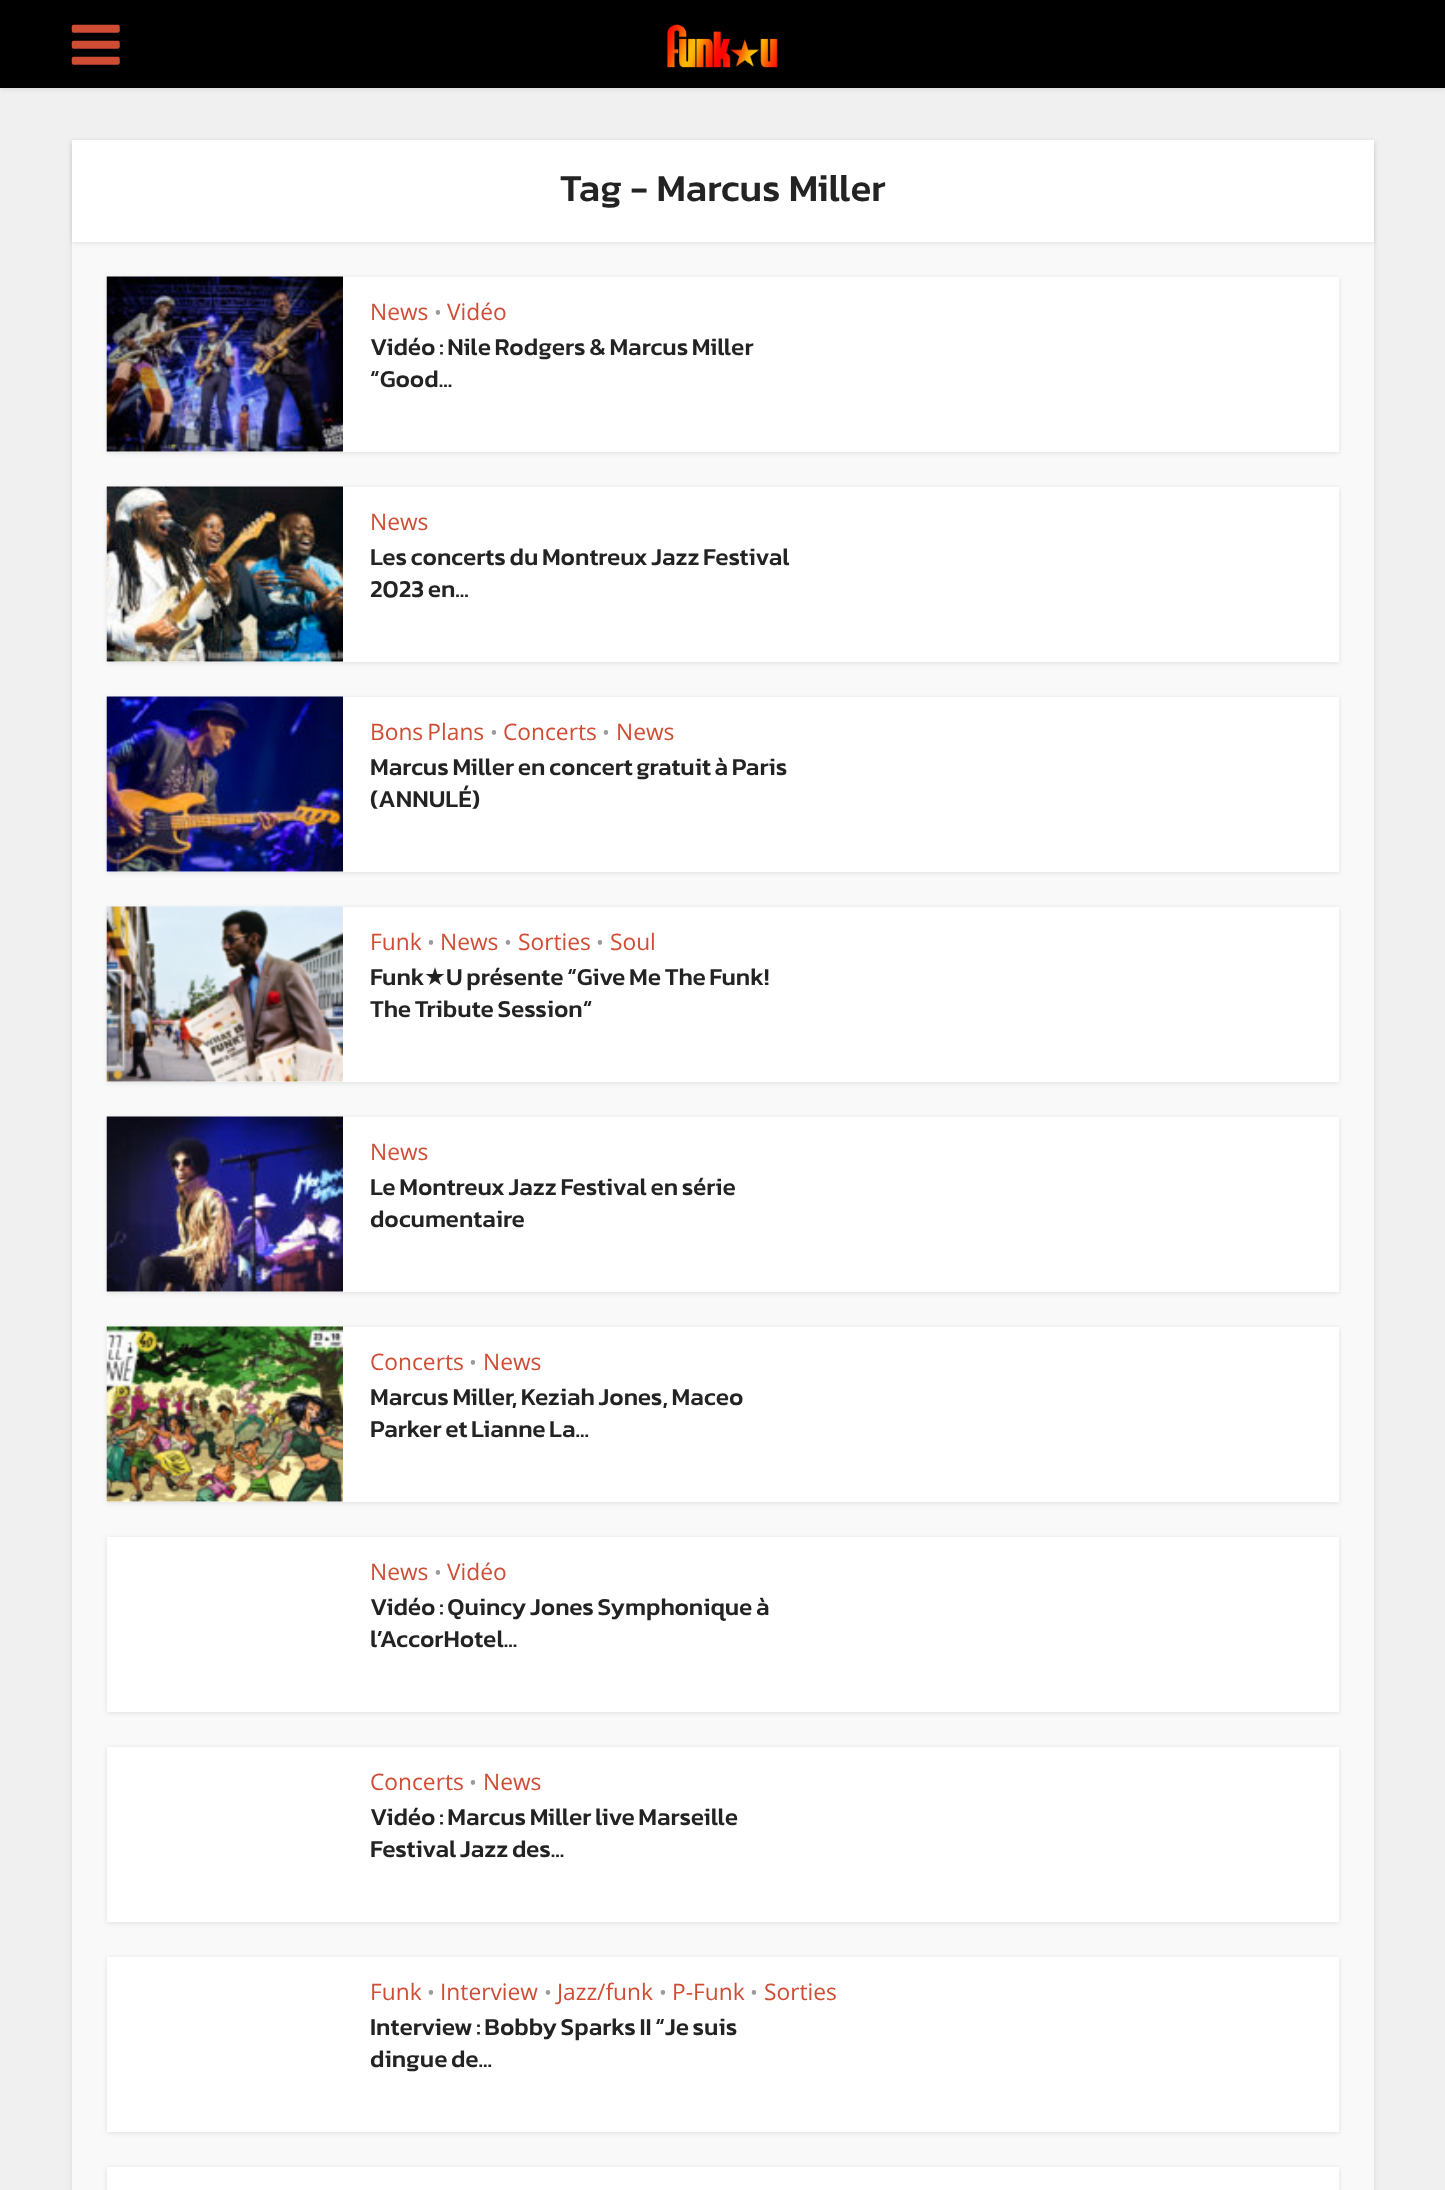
<!DOCTYPE html>
<meta charset="utf-8">
<style>body { margin: 0 } canvas { display: block }</style>
<canvas id="canvas" width="1445" height="2190"></canvas>
<script type="module">
  const canvas = document.getElementById("canvas");
  const g = canvas.getContext("2d");
  g.miterLimit = 4;
  g.fontKerning = "normal";
  function drawText(s, x, y, [font, color]) {
    g.font = font;
    g.fillStyle = color;
    g.fillText(s, x, y);
  }
  function fillBox(x, y, w, h, color) {
    g.fillStyle = color;
    g.fillRect(x, y, w, h);
  }
  async function drawPicture(src, x, y, w, h) {
    const img = new Image();
    img.src = src;
    await img.decode();
    g.drawImage(img, x, y, w, h);
  }

  const s1 = ["500 38.5px Kanit", "#232323"];
  const s2 = ["22.75px Open Sans", "#CF4D35"];
  const s3 = ["21px Open Sans", "#9B9B9B"];
  const s4 = ["500 24.5px Kanit", "#232323"];
  const s5 = ["24.5px DejaVu Sans", "#232323"];

  fillBox(0, 0, 1445, 2190, "#F0F0F0");
  g.fillStyle = "rgba(0, 0, 0, 0.1)";
  g.filter = "blur(2.5px)";
  g.beginPath();
  g.rect(0, 2, 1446, 87);
  g.fill();
  g.filter = "none";
  fillBox(0, 0, 1445, 88, "#000000");
  await drawPicture("pic1.png", 71, 24, 49, 41);
  await drawPicture("pic2.png", 667, 24, 111, 44);
  g.fillStyle = "rgba(0, 0, 0, 0.1)";
  g.filter = "blur(2.5px)";
  g.beginPath();
  g.rect(72, 142, 1302, 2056);
  g.fill();
  g.filter = "none";
  fillBox(72, 242, 1302, 1948, "#F9F9F9");
  g.fillStyle = "rgba(0, 0, 0, 0.1)";
  g.filter = "blur(2.5px)";
  g.beginPath();
  g.rect(72, 142, 1302, 101);
  g.fill();
  g.filter = "none";
  fillBox(72, 140, 1302, 102, "#FFFFFF");
  drawText("Tag - Marcus Miller", 560, 201, s1);
  g.fillStyle = "rgba(0, 0, 0, 0.1)";
  g.filter = "blur(2.5px)";
  g.beginPath();
  g.rect(107, 278, 1232, 175);
  g.fill();
  g.filter = "none";
  fillBox(107, 277, 1232, 175, "#FFFFFF");
  await drawPicture("pic3.png", 106, 276, 237, 176);
  drawText("News", 370, 320, s2);
  drawText("•", 434, 320, s3);
  drawText("Vidéo", 447, 320, s2);
  g.wordSpacing = "-1.75px";
  drawText("Vidéo : Nile Rodgers & Marcus Miller", 370, 355, s4);
  g.wordSpacing = "0px";
  drawText("“Good...", 370, 387, s4);
  g.fillStyle = "rgba(0, 0, 0, 0.1)";
  g.filter = "blur(2.5px)";
  g.beginPath();
  g.rect(107, 488, 1232, 175);
  g.fill();
  g.filter = "none";
  fillBox(107, 487, 1232, 175, "#FFFFFF");
  await drawPicture("pic4.png", 106, 486, 237, 176);
  drawText("News", 370, 530, s2);
  g.wordSpacing = "-1.75px";
  drawText("Les concerts du Montreux Jazz Festival", 370, 565, s4);
  drawText("2023 en...", 370, 597, s4);
  g.fillStyle = "rgba(0, 0, 0, 0.1)";
  g.filter = "blur(2.5px)";
  g.beginPath();
  g.rect(107, 698, 1232, 175);
  g.fill();
  g.filter = "none";
  fillBox(107, 697, 1232, 175, "#FFFFFF");
  await drawPicture("pic5.png", 106, 696, 237, 176);
  drawText("Bons Plans", 370, 740, s2);
  g.wordSpacing = "0px";
  drawText("•", 490, 740, s3);
  drawText("Concerts", 503, 740, s2);
  drawText("•", 602, 740, s3);
  drawText("News", 616, 740, s2);
  g.wordSpacing = "-1.75px";
  drawText("Marcus Miller en concert gratuit à Paris", 370, 775, s4);
  g.wordSpacing = "0px";
  drawText("(ANNULÉ)", 370, 807, s4);
  g.fillStyle = "rgba(0, 0, 0, 0.1)";
  g.filter = "blur(2.5px)";
  g.beginPath();
  g.rect(107, 908, 1232, 175);
  g.fill();
  g.filter = "none";
  fillBox(107, 907, 1232, 175, "#FFFFFF");
  await drawPicture("pic6.png", 106, 906, 237, 176);
  drawText("Funk", 370, 950, s2);
  drawText("•", 427, 950, s3);
  drawText("News", 440, 950, s2);
  drawText("•", 504, 950, s3);
  drawText("Sorties", 518, 950, s2);
  drawText("•", 596, 950, s3);
  drawText("Soul", 610, 950, s2);
  drawText("Funk", 370, 985, s4);
  drawText("★", 424, 985, s5);
  g.wordSpacing = "-1.75px";
  drawText("U présente “Give Me The Funk!", 446, 985, s4);
  drawText("The Tribute Session“", 370, 1017, s4);
  g.fillStyle = "rgba(0, 0, 0, 0.1)";
  g.filter = "blur(2.5px)";
  g.beginPath();
  g.rect(107, 1118, 1232, 175);
  g.fill();
  g.filter = "none";
  fillBox(107, 1117, 1232, 175, "#FFFFFF");
  await drawPicture("pic7.png", 106, 1116, 237, 176);
  g.wordSpacing = "0px";
  drawText("News", 370, 1160, s2);
  g.wordSpacing = "-1.75px";
  drawText("Le Montreux Jazz Festival en série", 370, 1195, s4);
  g.wordSpacing = "0px";
  drawText("documentaire", 370, 1227, s4);
  g.fillStyle = "rgba(0, 0, 0, 0.1)";
  g.filter = "blur(2.5px)";
  g.beginPath();
  g.rect(107, 1328, 1232, 175);
  g.fill();
  g.filter = "none";
  fillBox(107, 1327, 1232, 175, "#FFFFFF");
  await drawPicture("pic8.png", 106, 1326, 237, 176);
  drawText("Concerts", 370, 1370, s2);
  drawText("•", 469, 1370, s3);
  drawText("News", 483, 1370, s2);
  g.wordSpacing = "-1.75px";
  drawText("Marcus Miller, Keziah Jones, Maceo", 370, 1405, s4);
  drawText("Parker et Lianne La...", 370, 1437, s4);
  g.fillStyle = "rgba(0, 0, 0, 0.1)";
  g.filter = "blur(2.5px)";
  g.beginPath();
  g.rect(107, 1538, 1232, 175);
  g.fill();
  g.filter = "none";
  fillBox(107, 1537, 1232, 175, "#FFFFFF");
  g.wordSpacing = "0px";
  drawText("News", 370, 1580, s2);
  drawText("•", 434, 1580, s3);
  drawText("Vidéo", 447, 1580, s2);
  g.wordSpacing = "-1.75px";
  drawText("Vidéo : Quincy Jones Symphonique à", 370, 1615, s4);
  g.wordSpacing = "0px";
  drawText("l’AccorHotel...", 370, 1647, s4);
  g.fillStyle = "rgba(0, 0, 0, 0.1)";
  g.filter = "blur(2.5px)";
  g.beginPath();
  g.rect(107, 1748, 1232, 175);
  g.fill();
  g.filter = "none";
  fillBox(107, 1747, 1232, 175, "#FFFFFF");
  drawText("Concerts", 370, 1790, s2);
  drawText("•", 469, 1790, s3);
  drawText("News", 483, 1790, s2);
  g.wordSpacing = "-1.75px";
  drawText("Vidéo : Marcus Miller live Marseille", 370, 1825, s4);
  drawText("Festival Jazz des...", 370, 1857, s4);
  g.fillStyle = "rgba(0, 0, 0, 0.1)";
  g.filter = "blur(2.5px)";
  g.beginPath();
  g.rect(107, 1958, 1232, 175);
  g.fill();
  g.filter = "none";
  fillBox(107, 1957, 1232, 175, "#FFFFFF");
  g.wordSpacing = "0px";
  drawText("Funk", 370, 2000, s2);
  drawText("•", 427, 2000, s3);
  drawText("Interview", 440, 2000, s2);
  drawText("•", 544, 2000, s3);
  drawText("Jazz/funk", 557, 2000, s2);
  drawText("•", 659, 2000, s3);
  drawText("P-Funk", 672, 2000, s2);
  drawText("•", 750, 2000, s3);
  drawText("Sorties", 764, 2000, s2);
  g.wordSpacing = "-1.75px";
  drawText("Interview : Bobby Sparks II “Je suis", 370, 2035, s4);
  drawText("dingue de...", 370, 2067, s4);
  g.fillStyle = "rgba(0, 0, 0, 0.1)";
  g.filter = "blur(2.5px)";
  g.beginPath();
  g.rect(107, 2168, 1232, 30);
  g.fill();
  g.filter = "none";
  fillBox(107, 2167, 1232, 23, "#FFFFFF");
</script>
